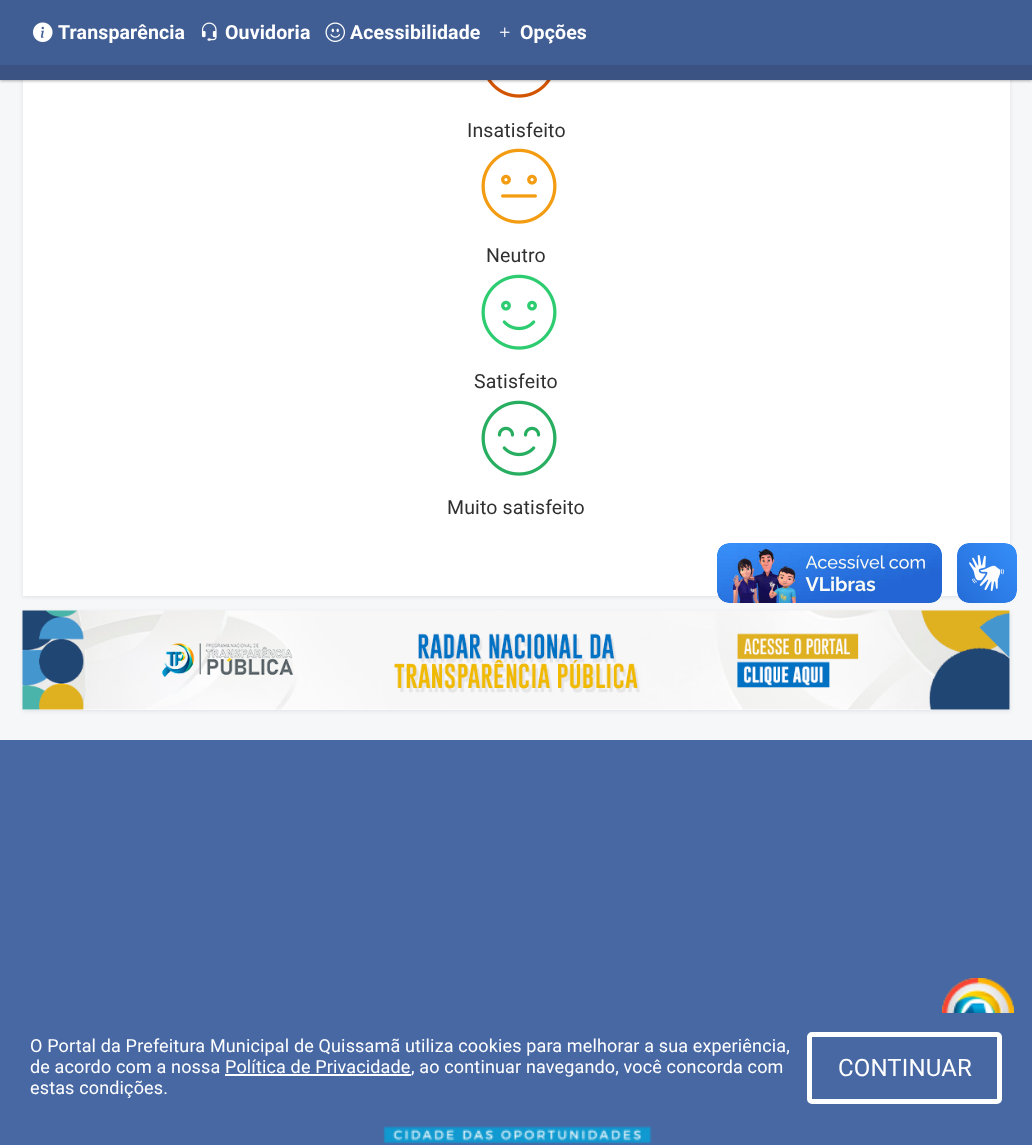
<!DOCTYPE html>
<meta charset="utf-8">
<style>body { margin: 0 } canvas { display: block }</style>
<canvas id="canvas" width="1032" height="1145"></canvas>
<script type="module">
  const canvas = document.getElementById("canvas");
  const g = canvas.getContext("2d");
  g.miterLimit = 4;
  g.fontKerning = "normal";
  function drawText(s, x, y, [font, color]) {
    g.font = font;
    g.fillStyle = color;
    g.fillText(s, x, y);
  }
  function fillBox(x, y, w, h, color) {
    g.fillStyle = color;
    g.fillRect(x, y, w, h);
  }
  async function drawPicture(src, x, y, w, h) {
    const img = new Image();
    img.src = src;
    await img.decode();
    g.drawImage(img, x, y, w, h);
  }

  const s1 = ["bold 19.5px Roboto", "#FFFFFF"];
  const s2 = ["19.5px Roboto", "#303030"];
  const s3 = ["18px Roboto", "#FFFFFF"];
  const s4 = ["24px Roboto", "#FFFFFF"];

  fillBox(0, 0, 1032, 1145, "#F6F7F8");
  g.fillStyle = "rgba(3, 0, 71, 0.09)";
  g.filter = "blur(2px)";
  g.beginPath();
  g.rect(23, -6, 987, 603);
  g.fill();
  g.filter = "none";
  fillBox(23, 80, 987, 516, "#FFFFFF");
  await drawPicture("pic5.png", 487, 80, 64, 18);
  g.fillStyle = "rgba(0, 0, 0, 0.3)";
  g.filter = "blur(1.5px)";
  g.beginPath();
  g.rect(0, 2, 1032, 79);
  g.fill();
  g.filter = "none";
  fillBox(0, 65, 1032, 15, "#3A5383");
  fillBox(0, 0, 1032, 65, "#415E94");
  await drawPicture("pic1.png", 33, 22, 20, 20);
  g.letterSpacing = "0.15px";
  drawText("Transparência", 58, 39, s1);
  await drawPicture("pic2.png", 201, 22, 16, 19);
  drawText("Ouvidoria", 225, 39, s1);
  await drawPicture("pic3.png", 325, 22, 20, 20);
  drawText("Acessibilidade", 350, 39, s1);
  await drawPicture("pic4.png", 499, 27, 11, 11);
  drawText("Opções", 520, 39, s1);
  drawText("Insatisfeito", 467, 137, s2);
  await drawPicture("pic6.png", 481, 148, 76, 76);
  drawText("Neutro", 486, 262, s2);
  await drawPicture("pic7.png", 481, 274, 76, 76);
  drawText("Satisfeito", 474, 388, s2);
  await drawPicture("pic8.png", 481, 400, 76, 76);
  drawText("Muito satisfeito", 447, 514, s2);
  await drawPicture("pic9.png", 717, 543, 225, 60);
  await drawPicture("pic10.png", 957, 543, 60, 60);
  g.fillStyle = "rgba(3, 0, 71, 0.09)";
  g.filter = "blur(2px)";
  g.beginPath();
  g.rect(23, 612, 987, 99);
  g.fill();
  g.filter = "none";
  fillBox(23, 611, 987, 99, "#FFFFFF");
  await drawPicture("pic11.png", 22, 610, 988, 100);
  fillBox(0, 740, 1032, 405, "#4868A4");
  await drawPicture("pic12.png", 383, 1126, 269, 18);
  await drawPicture("pic13.png", 942, 978, 72, 35);
  drawText("O Portal da Prefeitura Municipal de Quissamã utiliza cookies para melhorar a sua experiência,", 30, 1052, s3);
  drawText("de acordo com a nossa Política de Privacidade", 30, 1073, s3);
  fillBox(225, 1074, 186, 2, "#FFFFFF");
  drawText(", ao continuar navegando, você concorda com", 411, 1073, s3);
  drawText("estas condições.", 30, 1094, s3);
  g.beginPath();
  g.roundRect(809.5, 1034.5, 190, 67, 2.5);
  g.strokeStyle = "#FFFFFF";
  g.lineWidth = 5;
  g.stroke();
  drawText("CONTINUAR", 838, 1076, s4);
</script>
